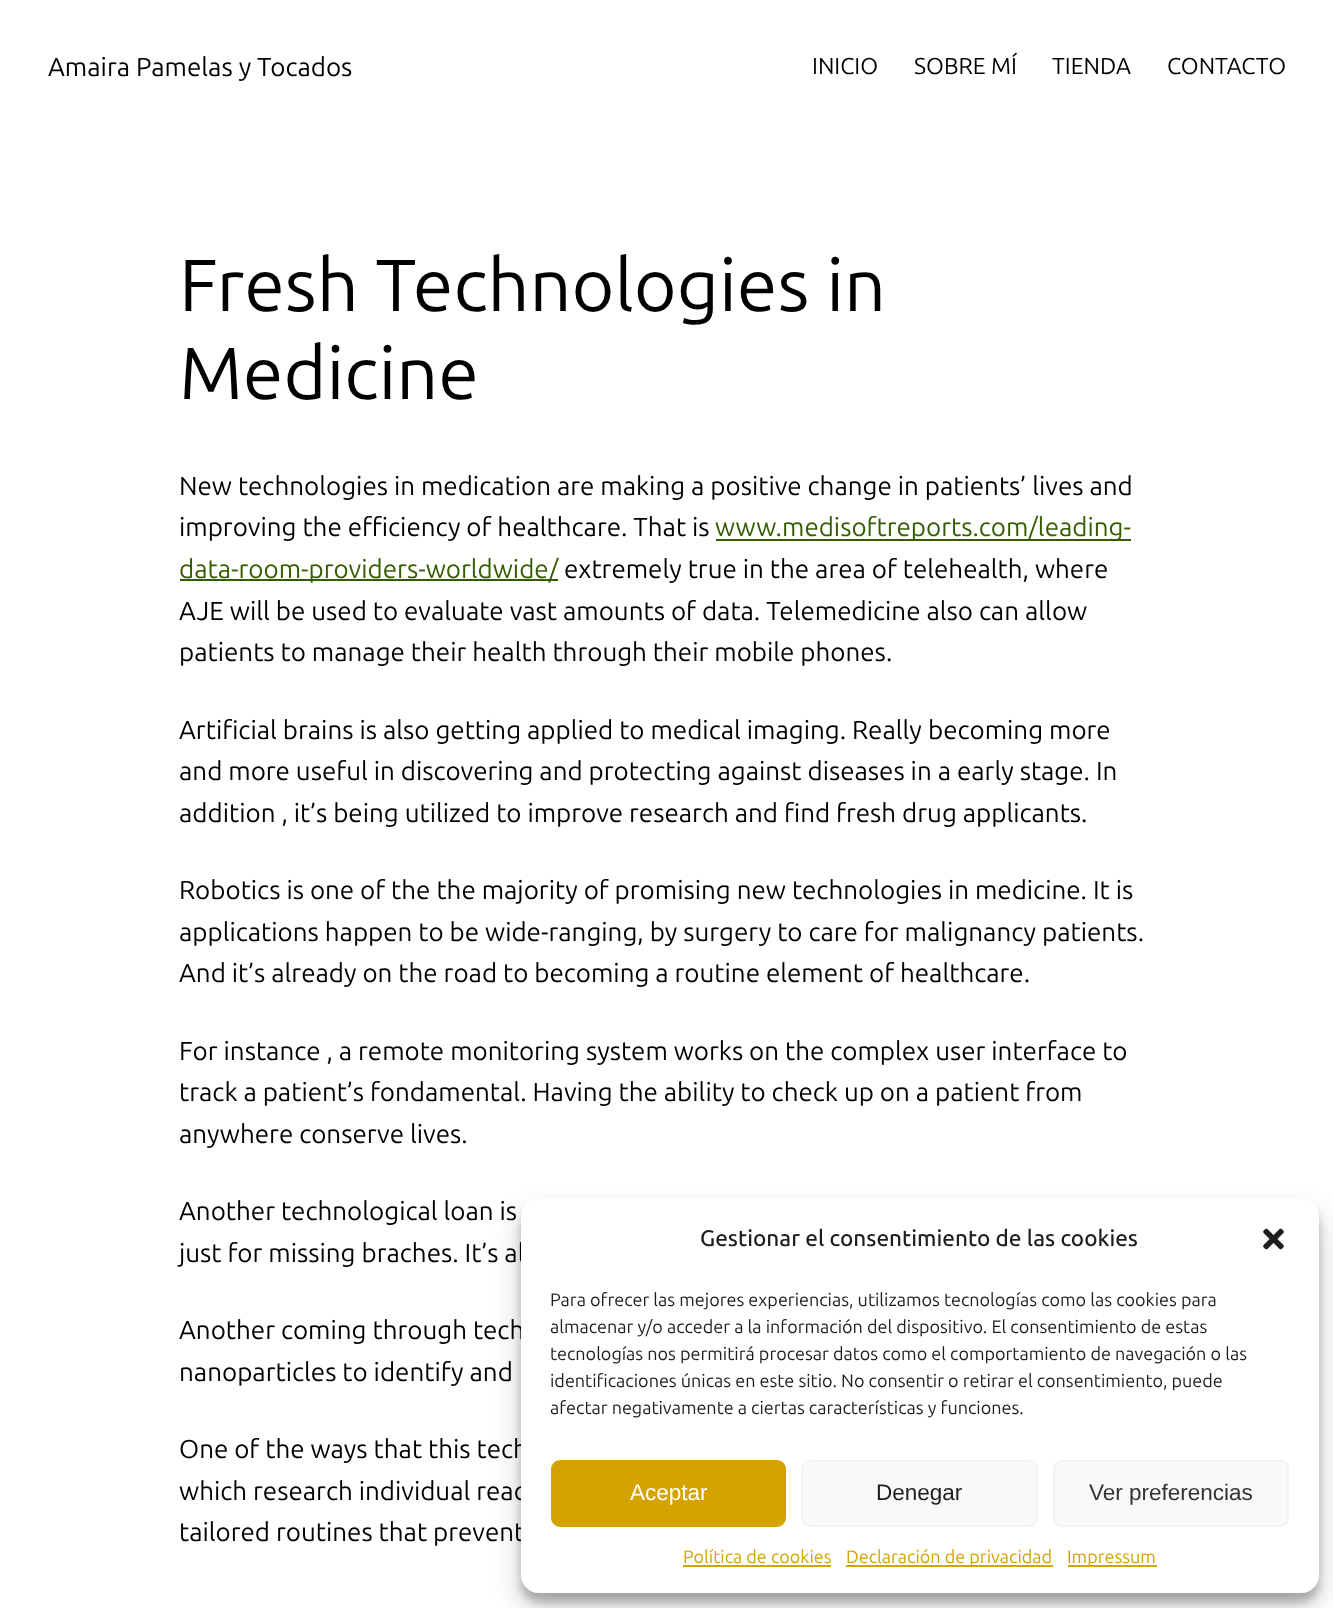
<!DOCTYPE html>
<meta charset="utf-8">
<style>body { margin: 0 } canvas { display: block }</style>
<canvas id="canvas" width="1333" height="1608"></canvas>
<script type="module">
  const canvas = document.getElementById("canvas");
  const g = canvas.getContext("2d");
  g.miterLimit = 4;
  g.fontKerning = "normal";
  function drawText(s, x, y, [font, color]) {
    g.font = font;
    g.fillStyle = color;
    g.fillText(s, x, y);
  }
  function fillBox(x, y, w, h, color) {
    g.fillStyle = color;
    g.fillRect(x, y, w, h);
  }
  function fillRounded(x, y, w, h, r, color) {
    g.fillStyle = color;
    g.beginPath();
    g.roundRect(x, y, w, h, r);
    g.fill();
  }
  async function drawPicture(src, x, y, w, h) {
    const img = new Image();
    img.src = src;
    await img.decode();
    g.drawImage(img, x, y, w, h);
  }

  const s1 = ["25.95px Ubuntu", "#000000"];
  const s2 = ["23px Ubuntu", "#000000"];
  const s3 = ["73.5px Ubuntu", "#000000"];
  const s4 = ["25.95px Ubuntu", "#345C00"];
  const s5 = ["500 22.5px Ubuntu", "#1E1E1E"];
  const s6 = ["18px Ubuntu", "#1E1E1E"];
  const s7 = ["22.5px Liberation Sans", "#FFFFFF"];
  const s8 = ["22.5px Liberation Sans", "#1E1E1E"];
  const s9 = ["22.5px Liberation Sans", "#333333"];
  const s10 = ["18px Ubuntu", "#D5A301"];

  fillBox(0, 0, 1333, 1608, "#FFFFFF");
  drawText("Amaira Pamelas y Tocados", 48, 76, s1);
  drawText("INICIO", 812, 74, s2);
  drawText("SOBRE MÍ", 914, 74, s2);
  drawText("TIENDA", 1052, 74, s2);
  drawText("CONTACTO", 1167, 74, s2);
  drawText("Fresh Technologies in", 179, 311, s3);
  drawText("Medicine", 179, 399, s3);
  drawText("New technologies in medication are making a positive change in patients’ lives and", 179, 495, s1);
  drawText("improving the efficiency of healthcare. That is", 179, 536, s1);
  fillBox(716, 539, 415, 2, "#345C00");
  drawText("www.medisoftreports.com/leading-", 715, 536, s4);
  fillBox(180, 579, 378, 2, "#345C00");
  drawText("data-room-providers-worldwide/", 179, 578, s4);
  drawText("extremely true in the area of telehealth, where", 564, 578, s1);
  drawText("AJE will be used to evaluate vast amounts of data. Telemedicine also can allow", 179, 620, s1);
  drawText("patients to manage their health through their mobile phones.", 179, 661, s1);
  drawText("Artificial brains is also getting applied to medical imaging. Really", 179, 739, s1);
  drawText("becoming more", 928, 739, s1);
  drawText("and more useful in discovering and protecting against diseases in a early stage. In", 179, 780, s1);
  drawText("addition , it’s being utilized to improve research and find fresh drug applicants.", 179, 822, s1);
  drawText("Robotics is one of the the majority of promising new technologies in medicine. It is", 179, 899, s1);
  drawText("applications happen to be wide-ranging, by surgery to care for malignancy patients.", 179, 941, s1);
  drawText("And it’s already on the road to becoming a routine element of healthcare.", 179, 982, s1);
  drawText("For instance , a remote monitoring system works on the complex user interface to", 179, 1060, s1);
  drawText("track a patient’s fondamental. Having the ability to check up on a patient from", 179, 1101, s1);
  drawText("anywhere conserve lives.", 179, 1143, s1);
  drawText("Another technological loan is", 179, 1220, s1);
  drawText("just for missing braches. It’s al", 179, 1262, s1);
  drawText("Another coming through tech", 179, 1339, s1);
  drawText("nanoparticles to identify and", 179, 1381, s1);
  drawText("One of the ways that this tech", 179, 1458, s1);
  drawText("which research individual reac", 179, 1500, s1);
  drawText("tailored routines that prevent", 179, 1541, s1);
  g.fillStyle = "rgba(0, 0, 0, 0.23)";
  g.filter = "blur(4.5px)";
  g.beginPath();
  g.roundRect(521, 1208, 798, 394, 18);
  g.fill();
  g.filter = "none";
  g.fillStyle = "rgba(0, 0, 0, 0.19)";
  g.filter = "blur(15px)";
  g.beginPath();
  g.roundRect(521, 1214, 798, 394, 18);
  g.fill();
  g.filter = "none";
  fillRounded(521, 1199, 798, 394, 18, "#FFFFFF");
  drawText("Gestionar el consentimiento de las cookies", 700, 1246, s5);
  await drawPicture("pic1.png", 1263, 1228, 21, 22);
  drawText("Para ofrecer las mejores experiencias, utilizamos tecnologías como las cookies para", 550, 1306, s6);
  drawText("almacenar y/o acceder a la información del dispositivo. El consentimiento de estas", 550, 1333, s6);
  drawText("tecnologías nos permitirá procesar datos como el comportamiento de navegación o las", 550, 1360, s6);
  drawText("identificaciones únicas en este sitio. No consentir o retirar el consentimiento, puede", 550, 1387, s6);
  drawText("afectar negativamente a ciertas características y funciones.", 550, 1414, s6);
  g.fillStyle = "#D5A301";
  g.beginPath();
  g.roundRect(552, 1461, 233, 65, 8);
  g.fill();
  g.strokeStyle = "#D5A301";
  g.lineWidth = 2;
  g.stroke();
  drawText("Aceptar", 630, 1500, s7);
  g.fillStyle = "#F9F9F9";
  g.beginPath();
  g.roundRect(802, 1461, 235, 65, 8);
  g.fill();
  g.strokeStyle = "#F2F2F2";
  g.stroke();
  drawText("Denegar", 876, 1500, s8);
  g.fillStyle = "#F9F9F9";
  g.beginPath();
  g.roundRect(1054, 1461, 234, 65, 8);
  g.fill();
  g.stroke();
  drawText("Ver preferencias", 1089, 1500, s9);
  drawText("Política de cookies", 683, 1563, s10);
  fillBox(683, 1565, 148, 2, "#D5A301");
  fillBox(846, 1565, 207, 2, "#D5A301");
  drawText("Declaración de privacidad", 846, 1563, s10);
  fillBox(1068, 1565, 89, 2, "#D5A301");
  drawText("Impressum", 1067, 1563, s10);
</script>
